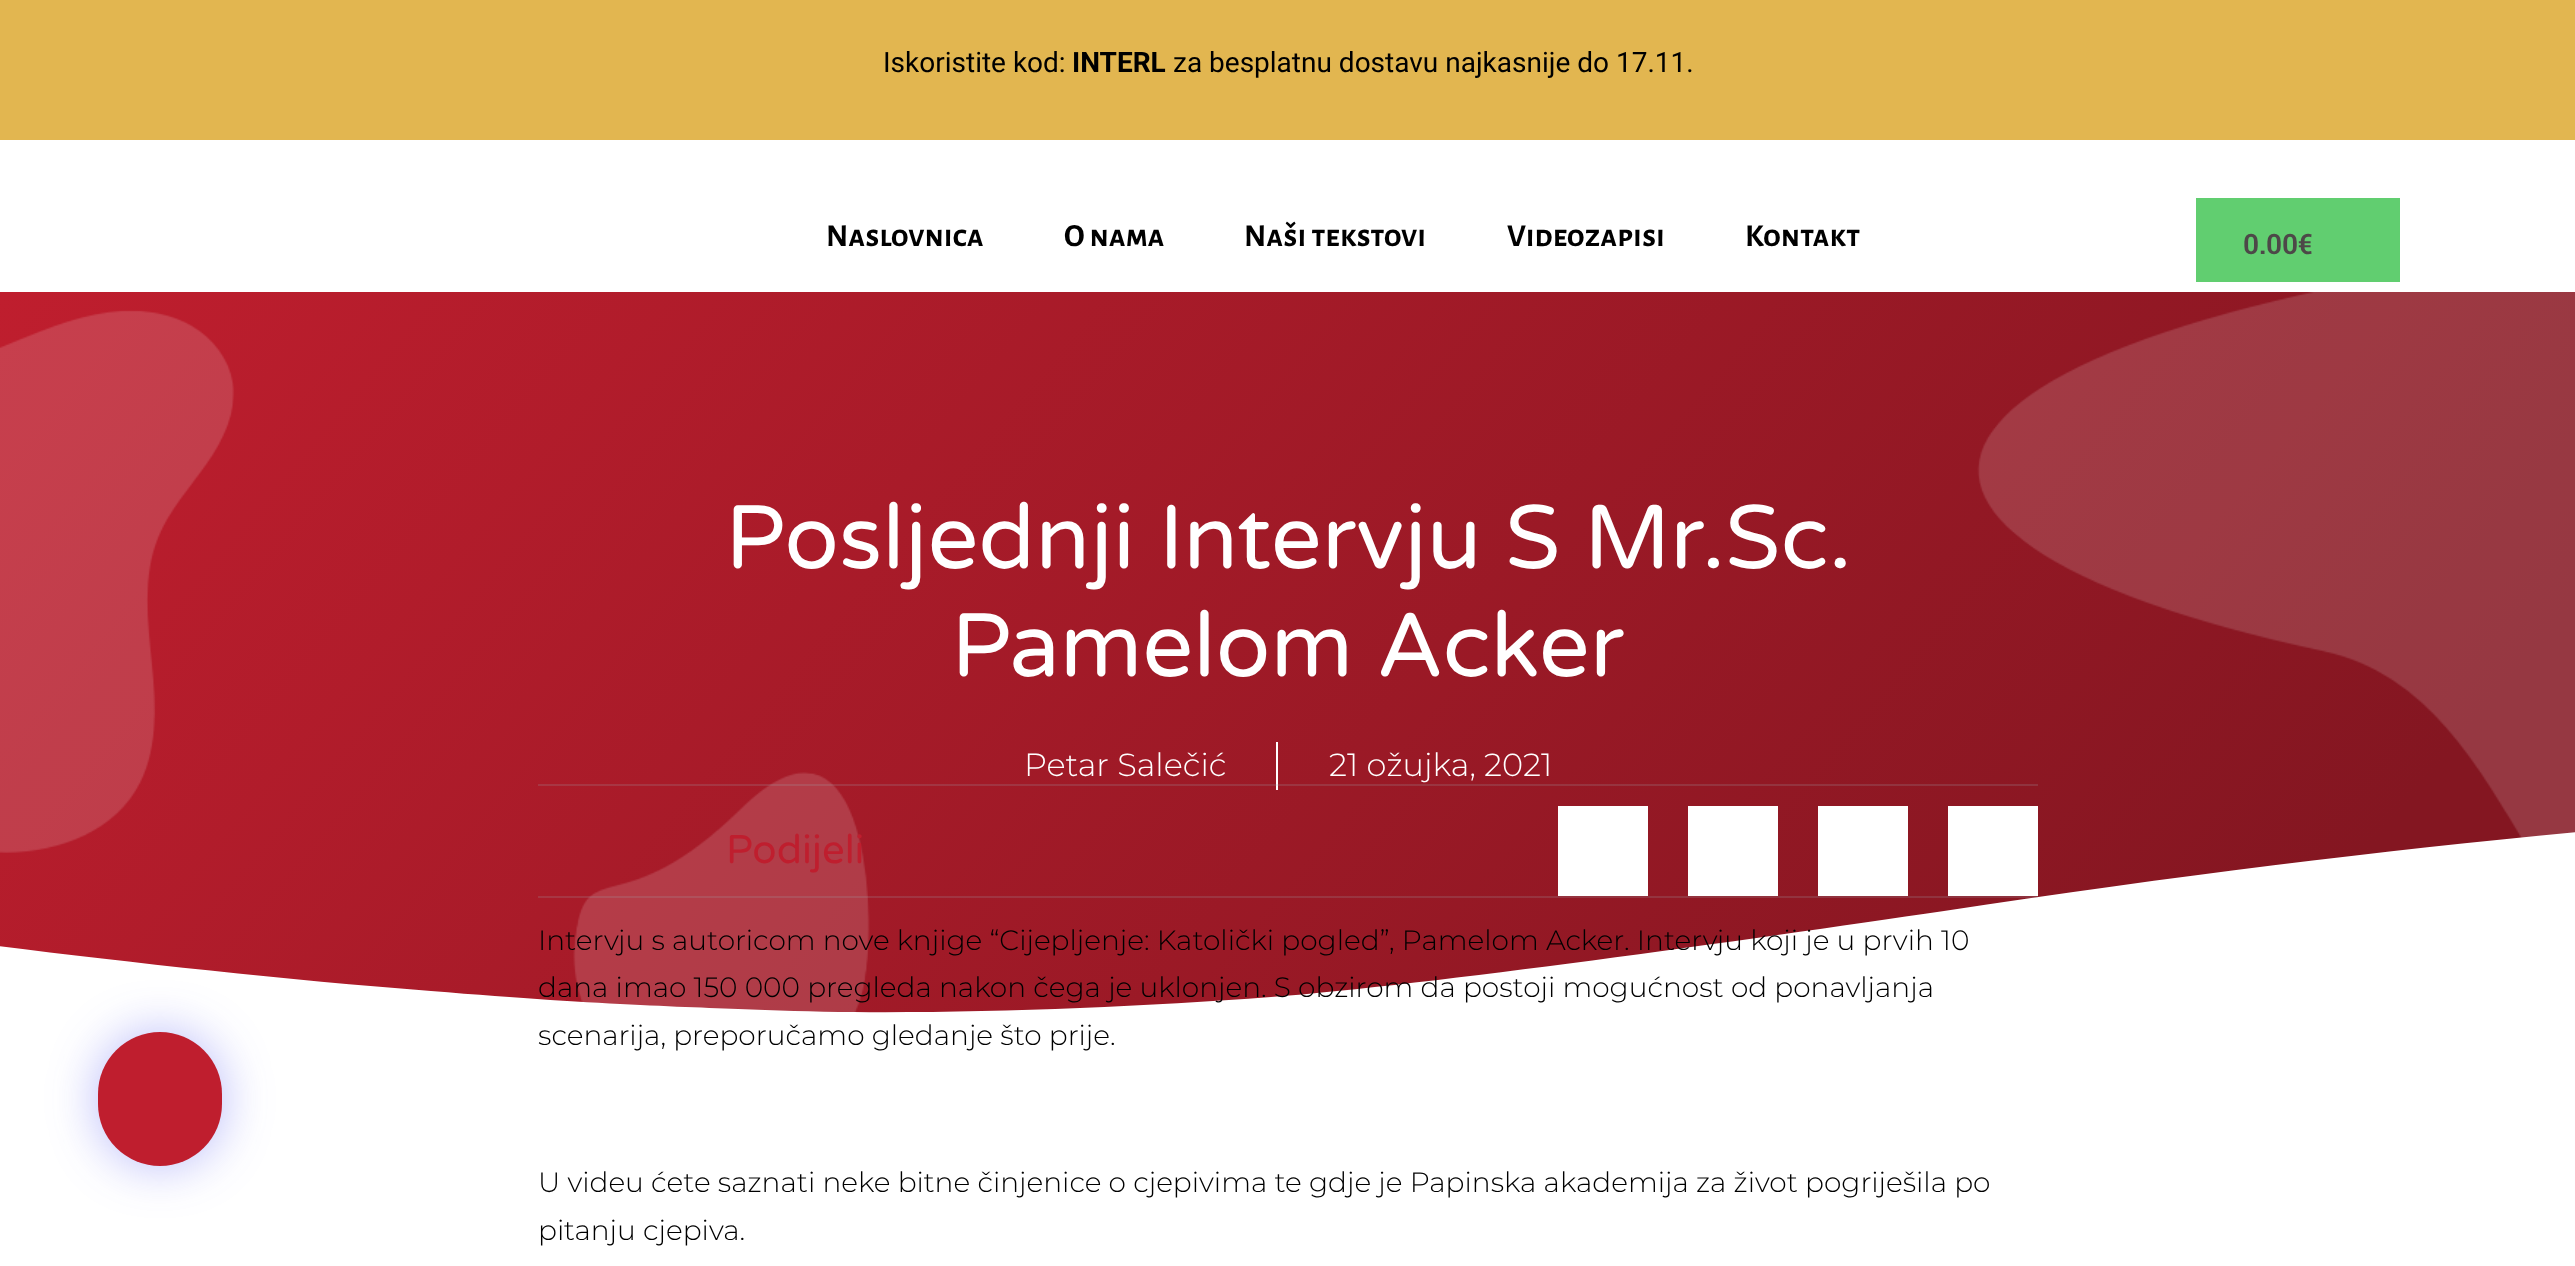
<!DOCTYPE html>
<meta charset="utf-8">
<style>body { margin: 0 } canvas { display: block }</style>
<canvas id="canvas" width="2575" height="1266"></canvas>
<script type="module">
  const canvas = document.getElementById("canvas");
  const g = canvas.getContext("2d");
  g.miterLimit = 4;
  g.fontKerning = "normal";
  function drawText(s, x, y, [font, color]) {
    g.font = font;
    g.fillStyle = color;
    g.fillText(s, x, y);
  }
  function fillBox(x, y, w, h, color) {
    g.fillStyle = color;
    g.fillRect(x, y, w, h);
  }
  function fillRounded(x, y, w, h, r, color) {
    g.fillStyle = color;
    g.beginPath();
    g.roundRect(x, y, w, h, r);
    g.fill();
  }
  async function drawPicture(src, x, y, w, h) {
    const img = new Image();
    img.src = src;
    await img.decode();
    g.drawImage(img, x, y, w, h);
  }
  let gradient;

  const s1 = ["28px Roboto", "#000000"];
  const s2 = ["bold 28px Roboto", "#000000"];
  const s3 = ["bold 32px Alegreya Sans SC", "#000000"];
  const s4 = ["600 28px Roboto Slab", "#4D4848"];
  const s5 = ["90px Varela Round", "#FFFFFF"];
  const s6 = ["300 32px Montserrat", "#FFFFFF"];
  const s7 = ["40px Varela Round", "#BF1E2E"];
  const s8 = ["300 28px Montserrat", "#000000"];

  fillBox(0, 0, 2575, 1266, "#FFFFFF");
  fillBox(0, 0, 2575, 140, "#E2B650");
  drawText("Iskoristite kod:", 883, 72, s1);
  drawText("INTERL", 1072, 72, s2);
  drawText("za besplatnu dostavu najkasnije do 17.11.", 1173, 72, s1);
  drawText("Naslovnica", 826, 246, s3);
  drawText("O nama", 1064, 246, s3);
  drawText("Naši tekstovi", 1244, 246, s3);
  drawText("Videozapisi", 1507, 246, s3);
  drawText("Kontakt", 1745, 246, s3);
  fillBox(2196, 198, 204, 84, "#61CE70");
  drawText("0.00€", 2243, 254, s4);
  gradient = g.createLinearGradient(352, -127, 2224, 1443);
  gradient.addColorStop(0, "#BF1E2E");
  gradient.addColorStop(0.89, "#841621");
  g.fillStyle = gradient;
  g.fillRect(0, 292, 2575, 721);
  await drawPicture("pic1.png", 0, 292, 2575, 721);
  drawText("Posljednji Intervju S Mr.Sc.", 725, 568, s5);
  drawText("Pamelom Acker", 951, 676, s5);
  drawText("Petar Salečić", 1024, 776, s6);
  fillBox(1276, 742, 2, 48, "#FFFFFF");
  drawText("21 ožujka, 2021", 1329, 776, s6);
  g.beginPath();
  g.moveTo(765, 1010);
  g.bezierCurveTo(916, 1016, 1110, 1009, 1271, 997);
  g.bezierCurveTo(1429, 985, 1746, 940, 1944, 911);
  g.bezierCurveTo(2452, 834, 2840, 804, 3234, 792);
  g.bezierCurveTo(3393, 787, 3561, 784, 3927, 798);
  g.bezierCurveTo(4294, 812, 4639, 859, 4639, 859);
  g.lineTo(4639, 1025);
  g.lineTo(-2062, 1025);
  g.lineTo(-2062, 952);
  g.bezierCurveTo(-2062, 952, -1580, 874, -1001, 879);
  g.bezierCurveTo(-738, 881, -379, 895, -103, 933);
  g.bezierCurveTo(39, 952, 247, 977, 431, 991);
  g.bezierCurveTo(613, 1006, 696, 1007, 765, 1010);
  g.closePath();
  g.fill();
  g.fillStyle = "rgba(53, 56, 240, 0.35)";
  g.filter = "blur(25px)";
  g.beginPath();
  g.roundRect(98, 1032, 124, 134, 62);
  g.fill();
  g.filter = "none";
  fillRounded(98, 1032, 124, 134, 62, "#BF1E2E");
  fillBox(538, 784, 1500, 2, "rgba(159, 163, 173, 0.2)");
  fillBox(538, 896, 1500, 2, "rgba(159, 163, 173, 0.2)");
  drawText("Podijeli", 726, 863, s7);
  fillBox(1558, 806, 90, 90, "#FFFFFF");
  fillBox(1688, 806, 90, 90, "#FFFFFF");
  fillBox(1818, 806, 90, 90, "#FFFFFF");
  fillBox(1948, 806, 90, 90, "#FFFFFF");
  drawText("Intervju s autoricom nove knjige “Cijepljenje: Katolički pogled”, Pamelom Acker. Intervju koji je u prvih 10", 538, 950, s8);
  drawText("dana imao 150 000 pregleda nakon čega je uklonjen. S obzirom da postoji mogućnost od ponavljanja", 538, 997, s8);
  drawText("scenarija, preporučamo gledanje što prije.", 538, 1045, s8);
  drawText("U videu ćete saznati neke bitne činjenice o cjepivima te gdje je Papinska akademija za život pogriješila po", 538, 1192, s8);
  drawText("pitanju cjepiva.", 538, 1240, s8);
</script>
